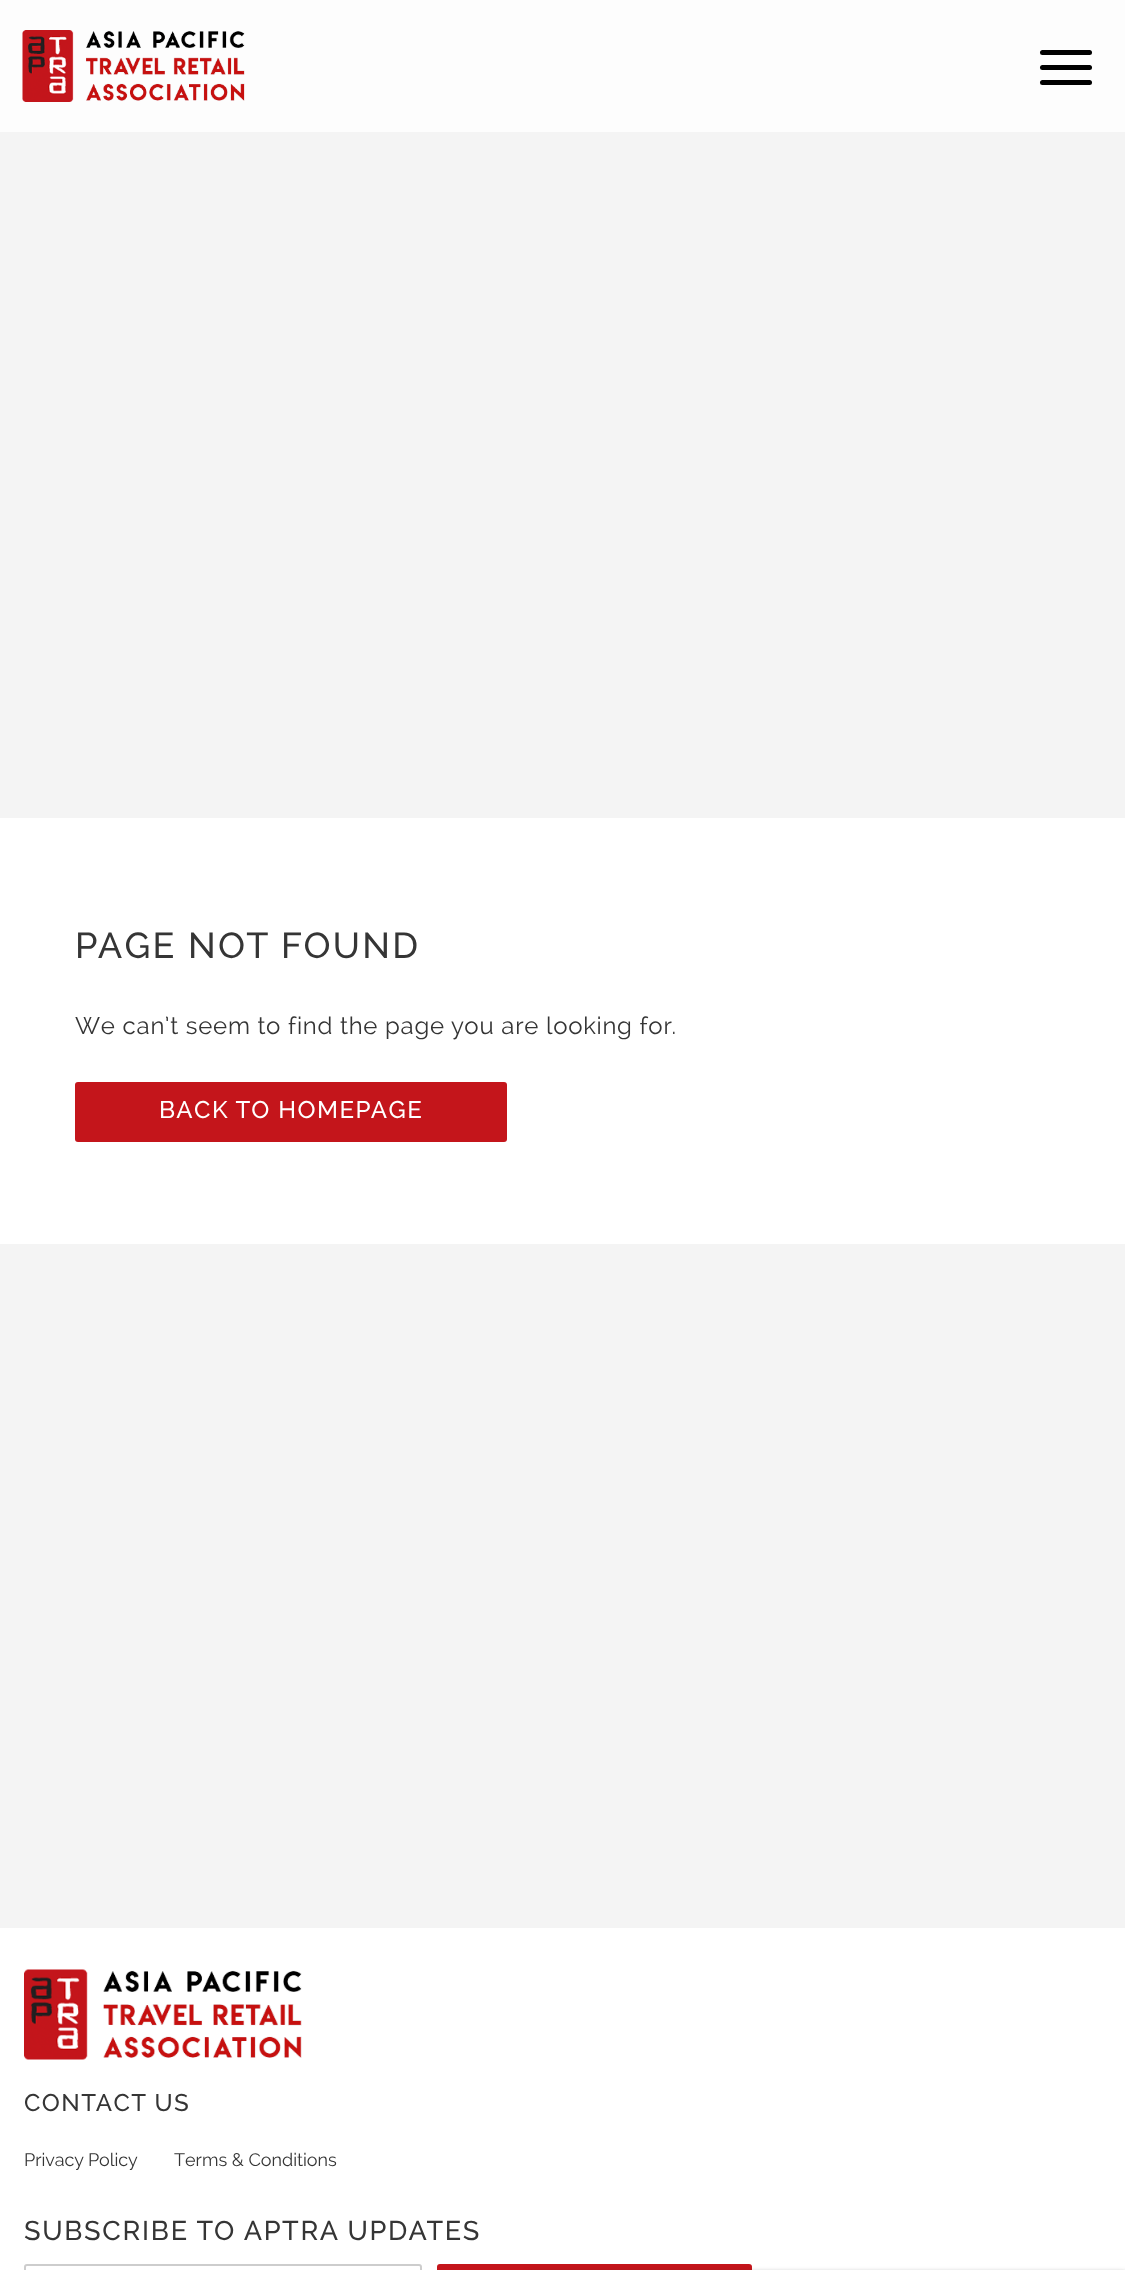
<!DOCTYPE html>
<meta charset="utf-8">
<style>body { margin: 0 } canvas { display: block }</style>
<canvas id="canvas" width="1125" height="2270"></canvas>
<script type="module">
  const canvas = document.getElementById("canvas");
  const g = canvas.getContext("2d");
  g.miterLimit = 4;
  g.fontKerning = "normal";
  function drawText(s, x, y, [font, color]) {
    g.font = font;
    g.fillStyle = color;
    g.fillText(s, x, y);
  }
  function fillBox(x, y, w, h, color) {
    g.fillStyle = color;
    g.fillRect(x, y, w, h);
  }
  function fillRounded(x, y, w, h, r, color) {
    g.fillStyle = color;
    g.beginPath();
    g.roundRect(x, y, w, h, r);
    g.fill();
  }
  async function drawPicture(src, x, y, w, h) {
    const img = new Image();
    img.src = src;
    await img.decode();
    g.drawImage(img, x, y, w, h);
  }

  const s1 = ["500 36px Raleway", "#353535"];
  const s2 = ["24px Raleway", "#353535"];
  const s3 = ["500 24px Raleway", "#FFFFFF"];
  const s4 = ["500 24px Raleway", "#353535"];
  const s5 = ["18px Raleway", "#353535"];
  const s6 = ["500 27px Raleway", "#353535"];

  fillBox(0, 0, 1125, 2270, "#F4F4F4");
  fillBox(0, 0, 1125, 132, "#FDFDFD");
  await drawPicture("pic1.png", 22, 30, 223, 72);
  fillRounded(1040, 65, 52, 5, 2.5, "#000000");
  fillRounded(1040, 50, 52, 5, 2.5, "#000000");
  fillRounded(1040, 80, 52, 5, 2.5, "#000000");
  fillBox(0, 818, 1125, 426, "#FFFFFF");
  g.letterSpacing = "2.25px";
  drawText("PAGE NOT FOUND", 75, 958, s1);
  g.letterSpacing = "0.75px";
  drawText("We can’t seem to find the page you are looking for.", 75, 1034, s2);
  fillRounded(75, 1082, 432, 60, 3, "#C4151B");
  g.letterSpacing = "1.5px";
  drawText("BACK TO HOMEPAGE", 159, 1118, s3);
  fillBox(0, 1928, 1125, 342, "#FFFFFF");
  await drawPicture("pic2.png", 24, 1969, 278, 91);
  drawText("CONTACT US", 24, 2111, s4);
  g.letterSpacing = "0px";
  drawText("Privacy Policy", 24, 2166, s5);
  drawText("Terms & Conditions", 174, 2166, s5);
  g.letterSpacing = "1.7px";
  drawText("SUBSCRIBE TO APTRA UPDATES", 24, 2240, s6);
  g.beginPath();
  g.roundRect(25, 2265, 396, 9, 2);
  g.strokeStyle = "#CDCDCD";
  g.lineWidth = 2;
  g.stroke();
  fillRounded(437, 2264, 315, 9, 3, "#C4151B");
  g.fillStyle = "rgba(53, 53, 53, 0.95)";
  g.filter = "blur(3px)";
  g.beginPath();
  g.roundRect(527, 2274, 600, 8, 3);
  g.fill();
  g.filter = "none";
</script>
